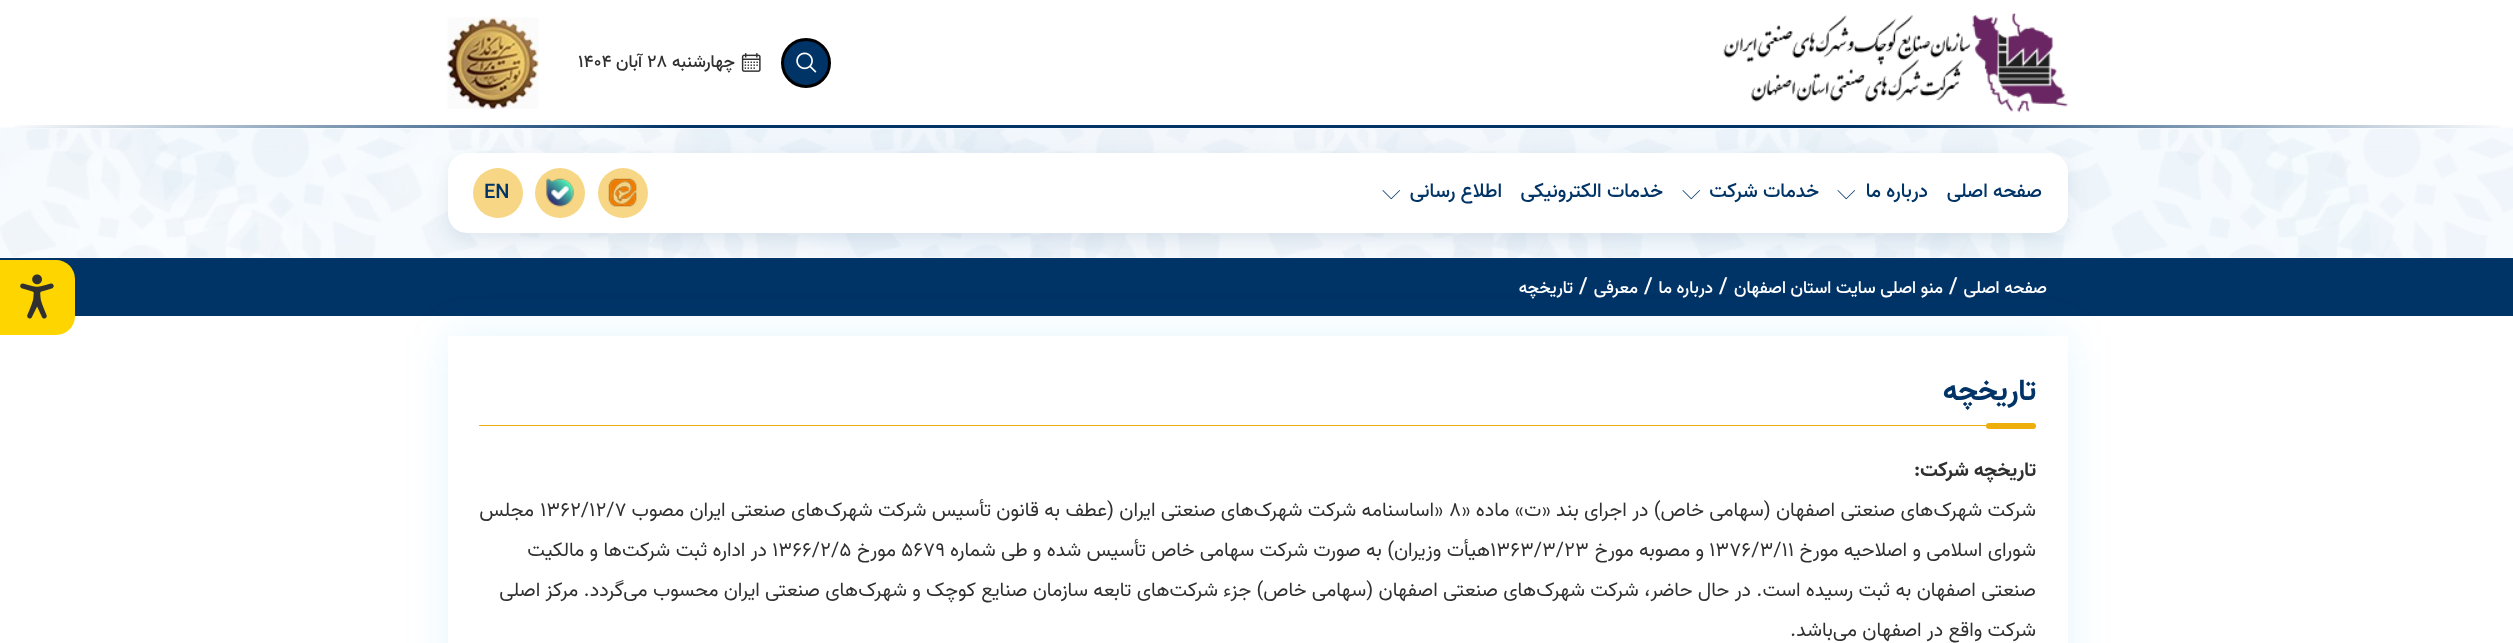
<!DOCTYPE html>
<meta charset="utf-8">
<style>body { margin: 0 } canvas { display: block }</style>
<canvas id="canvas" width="2513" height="643"></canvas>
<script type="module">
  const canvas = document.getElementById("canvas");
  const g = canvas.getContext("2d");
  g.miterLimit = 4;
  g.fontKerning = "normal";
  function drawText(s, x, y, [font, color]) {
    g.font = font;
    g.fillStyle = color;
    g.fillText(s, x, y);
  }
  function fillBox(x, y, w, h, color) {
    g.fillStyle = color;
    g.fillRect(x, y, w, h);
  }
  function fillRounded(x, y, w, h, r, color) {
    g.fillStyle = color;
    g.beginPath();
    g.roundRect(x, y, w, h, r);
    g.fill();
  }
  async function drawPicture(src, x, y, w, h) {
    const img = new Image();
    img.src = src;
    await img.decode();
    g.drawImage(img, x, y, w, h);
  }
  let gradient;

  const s1 = ["500 17.5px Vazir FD", "#303030"];
  const s2 = ["500 20px Vazir FD", "#003366"];
  const s3 = ["500 17.5px Vazir FD", "#FFFFFF"];
  const s4 = ["500 22px Vazir FD", "#FFFFFF"];
  const s5 = ["bold 30px Vazir FD", "#003366"];
  const s6 = ["bold 20px Vazir FD", "#303030"];
  const s7 = ["20px Vazir FD", "#303030"];

  fillBox(0, 0, 2513, 643, "#FFFFFF");
  await drawPicture("pic1.png", 1723, 12, 345, 101);
  g.fillStyle = "#003366";
  g.beginPath();
  g.arc(806, 63, 23.5, 0, Math.PI * 2);
  g.fill();
  g.strokeStyle = "#000000";
  g.lineWidth = 3;
  g.stroke();
  await drawPicture("pic2.png", 796, 52, 21, 21);
  await drawPicture("pic3.png", 741, 53, 20, 19);
  g.direction = "rtl";
  drawText("چهارشنبه", 735, 67, s1);
  g.direction = "ltr";
  drawText("28", 647, 67, s1);
  g.direction = "rtl";
  drawText("آبان", 642, 67, s1);
  g.direction = "ltr";
  drawText("1404", 578, 67, s1);
  await drawPicture("pic4.png", 447, 17, 92, 92);
  await drawPicture("pic5.png", 0, 127, 2513, 131);
  gradient = g.createLinearGradient(0, 126, 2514, 126);
  gradient.addColorStop(0, "rgba(0, 51, 102, 0)");
  gradient.addColorStop(0.27, "#003366");
  gradient.addColorStop(0.74, "#003366");
  gradient.addColorStop(1, "rgba(0, 51, 102, 0)");
  g.fillStyle = gradient;
  g.fillRect(15, 125, 2485, 3);
  await drawPicture("pic6.png", 0, 129, 2513, 129);
  fillBox(0, 258, 2513, 58, "#003366");
  g.fillStyle = "rgba(0, 51, 102, 0.1)";
  g.filter = "blur(9.5px)";
  g.beginPath();
  g.roundRect(448, 159, 1620, 80, 19);
  g.fill();
  g.filter = "none";
  fillRounded(448, 153, 1620, 80, 19, "#FFFFFF");
  g.direction = "rtl";
  drawText("صفحه اصلی", 2042, 197, s2);
  drawText("درباره ما", 1928, 197, s2);
  await drawPicture("pic7.png", 1837, 190, 18, 10);
  drawText("خدمات شرکت", 1819, 197, s2);
  await drawPicture("pic7.png", 1682, 190, 18, 10);
  drawText("خدمات الکترونیکی", 1663, 197, s2);
  drawText("اطلاع رسانی", 1502, 197, s2);
  await drawPicture("pic7.png", 1382, 190, 18, 10);
  g.fillStyle = "#F7D786";
  g.beginPath();
  g.arc(623, 193, 25, 0, Math.PI * 2);
  g.fill();
  await drawPicture("pic8.png", 608, 178, 29, 29);
  g.beginPath();
  g.arc(560, 193, 25, 0, Math.PI * 2);
  g.fill();
  await drawPicture("pic9.png", 546, 178, 28, 29);
  g.beginPath();
  g.arc(498, 193, 25, 0, Math.PI * 2);
  g.fill();
  g.direction = "ltr";
  drawText("EN", 484, 198, s2);
  g.save();
  g.beginPath();
  g.moveTo(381, 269);
  g.lineTo(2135, 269);
  g.lineTo(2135, 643);
  g.lineTo(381, 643);
  g.closePath();
  g.moveTo(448, 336);
  g.lineTo(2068, 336);
  g.lineTo(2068, 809);
  g.lineTo(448, 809);
  g.closePath();
  g.clip("evenodd");
  g.fillStyle = "rgba(0, 163, 255, 0.1)";
  g.filter = "blur(22px)";
  g.beginPath();
  g.rect(448, 336, 1620, 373);
  g.fill();
  g.filter = "none";
  g.restore();
  g.direction = "rtl";
  drawText("صفحه اصلی", 2047, 293, s3);
  g.direction = "ltr";
  drawText("/", 1949, 293, s4);
  g.direction = "rtl";
  drawText("منو اصلی سایت استان اصفهان", 1943, 293, s3);
  g.direction = "ltr";
  drawText("/", 1719, 293, s4);
  g.direction = "rtl";
  drawText("درباره ما", 1713, 293, s3);
  g.direction = "ltr";
  drawText("/", 1644, 293, s4);
  g.direction = "rtl";
  drawText("معرفی", 1638, 293, s3);
  g.direction = "ltr";
  drawText("/", 1579, 293, s4);
  g.direction = "rtl";
  drawText("تاریخچه", 1573, 293, s3);
  drawText("تاریخچه", 2036, 400, s5);
  fillRounded(479, 425, 1557, 1, 0.5, "#EEAF0C");
  fillRounded(1986, 423, 50, 6, 3, "#EEAF0C");
  drawText("تاریخچه شرکت", 2036, 476, s6);
  g.direction = "ltr";
  drawText(":", 1914, 476, s6);
  g.direction = "rtl";
  drawText("شرکت شهرک‌های صنعتی اصفهان (سهامی خاص) در اجرای بند «ت» ماده «", 2036, 516, s7);
  g.direction = "ltr";
  drawText("8", 1449, 516, s7);
  drawText("»", 1434, 516, s7);
  g.direction = "rtl";
  drawText("اساسنامه شرکت شهرک‌های صنعتی ایران (عطف به قانون تأسیس شرکت شهرک‌های صنعتی ایران مصوب", 1434, 516, s7);
  g.direction = "ltr";
  drawText("1362/12/7", 540, 516, s7);
  g.direction = "rtl";
  drawText("مجلس", 534, 516, s7);
  drawText("شورای اسلامی و اصلاحیه مورخ", 2036, 556, s7);
  g.direction = "ltr";
  drawText("1376/3/11", 1709, 556, s7);
  g.direction = "rtl";
  drawText("و مصوبه مورخ", 1704, 556, s7);
  g.direction = "ltr";
  drawText("1363/3/23", 1490, 556, s7);
  g.direction = "rtl";
  drawText("هیأت وزیران) به صورت شرکت سهامی خاص تأسیس شده و طی شماره", 1490, 556, s7);
  g.direction = "ltr";
  drawText("5679", 901, 556, s7);
  g.direction = "rtl";
  drawText("مورخ", 896, 556, s7);
  g.direction = "ltr";
  drawText("1366/2/5", 772, 556, s7);
  g.direction = "rtl";
  drawText("در اداره ثبت شرکت‌ها و مالکیت", 767, 556, s7);
  drawText("صنعتی اصفهان به ثبت رسیده است. در حال حاضر، شرکت شهرک‌های صنعتی اصفهان (سهامی خاص) جزء شرکت‌های تابعه سازمان صنایع کوچک و شهرک‌های صنعتی ایران محسوب می‌گردد. مرکز اصلی", 2036, 596, s7);
  drawText("شرکت واقع در اصفهان می‌باشد", 2036, 636, s7);
  g.direction = "ltr";
  drawText(".", 1790, 636, s7);
  g.fillStyle = "#FFD500";
  g.beginPath();
  g.roundRect(0, 260, 75, 75, [0, 19, 19, 0]);
  g.fill();
  await drawPicture("pic10.png", 20, 274, 34, 45);
</script>
